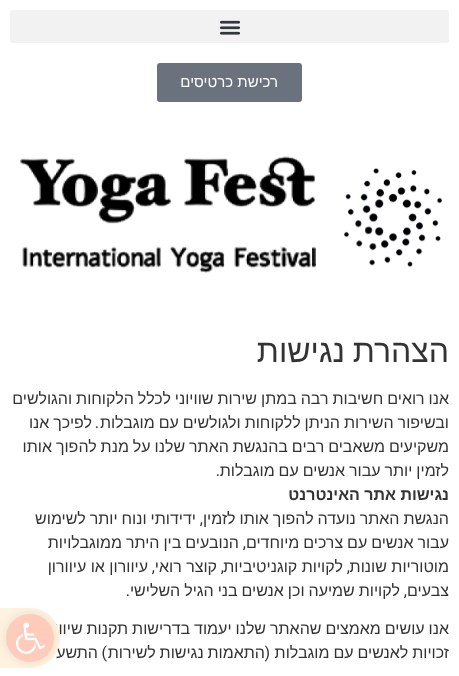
<!DOCTYPE html>
<meta charset="utf-8">
<style>body { margin: 0 } canvas { display: block }</style>
<canvas id="canvas" width="459" height="676"></canvas>
<script type="module">
  const canvas = document.getElementById("canvas");
  const g = canvas.getContext("2d");
  g.miterLimit = 4;
  g.fontKerning = "normal";
  function drawText(s, x, y, [font, color]) {
    g.font = font;
    g.fillStyle = color;
    g.fillText(s, x, y);
  }
  function fillBox(x, y, w, h, color) {
    g.fillStyle = color;
    g.fillRect(x, y, w, h);
  }
  function fillRounded(x, y, w, h, r, color) {
    g.fillStyle = color;
    g.beginPath();
    g.roundRect(x, y, w, h, r);
    g.fill();
  }
  async function drawPicture(src, x, y, w, h) {
    const img = new Image();
    img.src = src;
    await img.decode();
    g.drawImage(img, x, y, w, h);
  }

  const s1 = ["15px Liberation Sans", "#FFFFFF"];
  const s2 = ["32px Liberation Sans", "#333333"];
  const s3 = ["16px Liberation Sans", "#333333"];
  const s4 = ["16px Roboto", "#333333"];
  const s5 = ["bold 16px Liberation Sans", "#333333"];

  fillBox(0, 0, 459, 676, "#FFFFFF");
  fillRounded(10, 10, 439, 33, 3, "#F2F2F2");
  await drawPicture("pic1.png", 219, 20, 22, 15);
  fillRounded(157, 63, 145, 39, 3, "#69727D");
  g.direction = "rtl";
  drawText("רכישת כרטיסים", 278, 87, s1);
  await drawPicture("pic2.png", 20, 156, 422, 117);
  g.wordSpacing = "-1px";
  drawText("הצהרת נגישות", 449, 362, s2);
  g.wordSpacing = "-0.5px";
  drawText("אנו רואים חשיבות רבה במתן שירות שוויוני לכלל הלקוחות והגולשים", 449, 404, s3);
  drawText("ובשיפור השירות הניתן ללקוחות ולגולשים עם מוגבלות", 449, 428, s3);
  g.wordSpacing = "0px";
  drawText(".", 99, 428, s4);
  g.wordSpacing = "-0.5px";
  drawText("לפיכך אנו", 92, 428, s3);
  drawText("משקיעים משאבים רבים בהנגשת האתר שלנו על מנת להפוך אותו", 449, 452, s3);
  drawText("לזמין יותר עבור אנשים עם מוגבלות", 449, 476, s3);
  g.wordSpacing = "0px";
  drawText(".", 220, 476, s4);
  drawText("נגישות אתר האינטרנט", 449, 500, s5);
  g.wordSpacing = "-0.5px";
  drawText("הנגשת האתר נועדה להפוך אותו לזמין", 449, 524, s3);
  g.wordSpacing = "0px";
  drawText(",", 203, 524, s4);
  g.wordSpacing = "-0.5px";
  drawText("ידידותי ונוח יותר לשימוש", 196, 524, s3);
  drawText("עבור אנשים עם צרכים מיוחדים", 449, 548, s3);
  g.wordSpacing = "0px";
  drawText(",", 246, 548, s4);
  g.wordSpacing = "-0.5px";
  drawText("הנובעים בין היתר ממוגבלויות", 239, 548, s3);
  g.wordSpacing = "0px";
  drawText("מוטוריות שונות", 449, 572, s3);
  drawText(",", 350, 572, s4);
  drawText("לקויות קוגניטיביות", 343, 572, s3);
  drawText(",", 224, 572, s4);
  drawText("קוצר רואי", 217, 572, s3);
  drawText(",", 155, 572, s4);
  drawText("עיוורון או עיוורון", 148, 572, s3);
  drawText("צבעים", 449, 596, s3);
  drawText(",", 407, 596, s4);
  g.wordSpacing = "-0.5px";
  drawText("לקויות שמיעה וכן אנשים בני הגיל השלישי", 400, 596, s3);
  g.wordSpacing = "0px";
  drawText(".", 130, 596, s4);
  g.wordSpacing = "-0.5px";
  drawText("אנו עושים מאמצים שהאתר שלנו יעמוד בדרישות תקנות שיוויון", 449, 634, s3);
  drawText("זכויות לאנשים עם מוגבלות", 449, 658, s3);
  g.wordSpacing = "0px";
  drawText("(", 270, 658, s4);
  g.wordSpacing = "-0.5px";
  drawText("התאמות נגישות לשירות", 265, 658, s3);
  g.wordSpacing = "0px";
  drawText(")", 107, 658, s4);
  drawText("התשע", 98, 658, s3);
  g.fillStyle = "#FFF3E0";
  g.beginPath();
  g.roundRect(0, 608, 60, 60, [0, 30, 30, 0]);
  g.fill();
  g.fillStyle = "rgba(0, 0, 0, 0.1)";
  g.filter = "blur(5px)";
  g.beginPath();
  g.roundRect(6, 614, 48, 48, 24);
  g.fill();
  g.filter = "none";
  g.fillStyle = "#FFCCBC";
  g.beginPath();
  g.arc(30, 638, 24, 0, Math.PI * 2);
  g.fill();
  await drawPicture("pic3.png", 15, 622, 30, 32);
</script>
